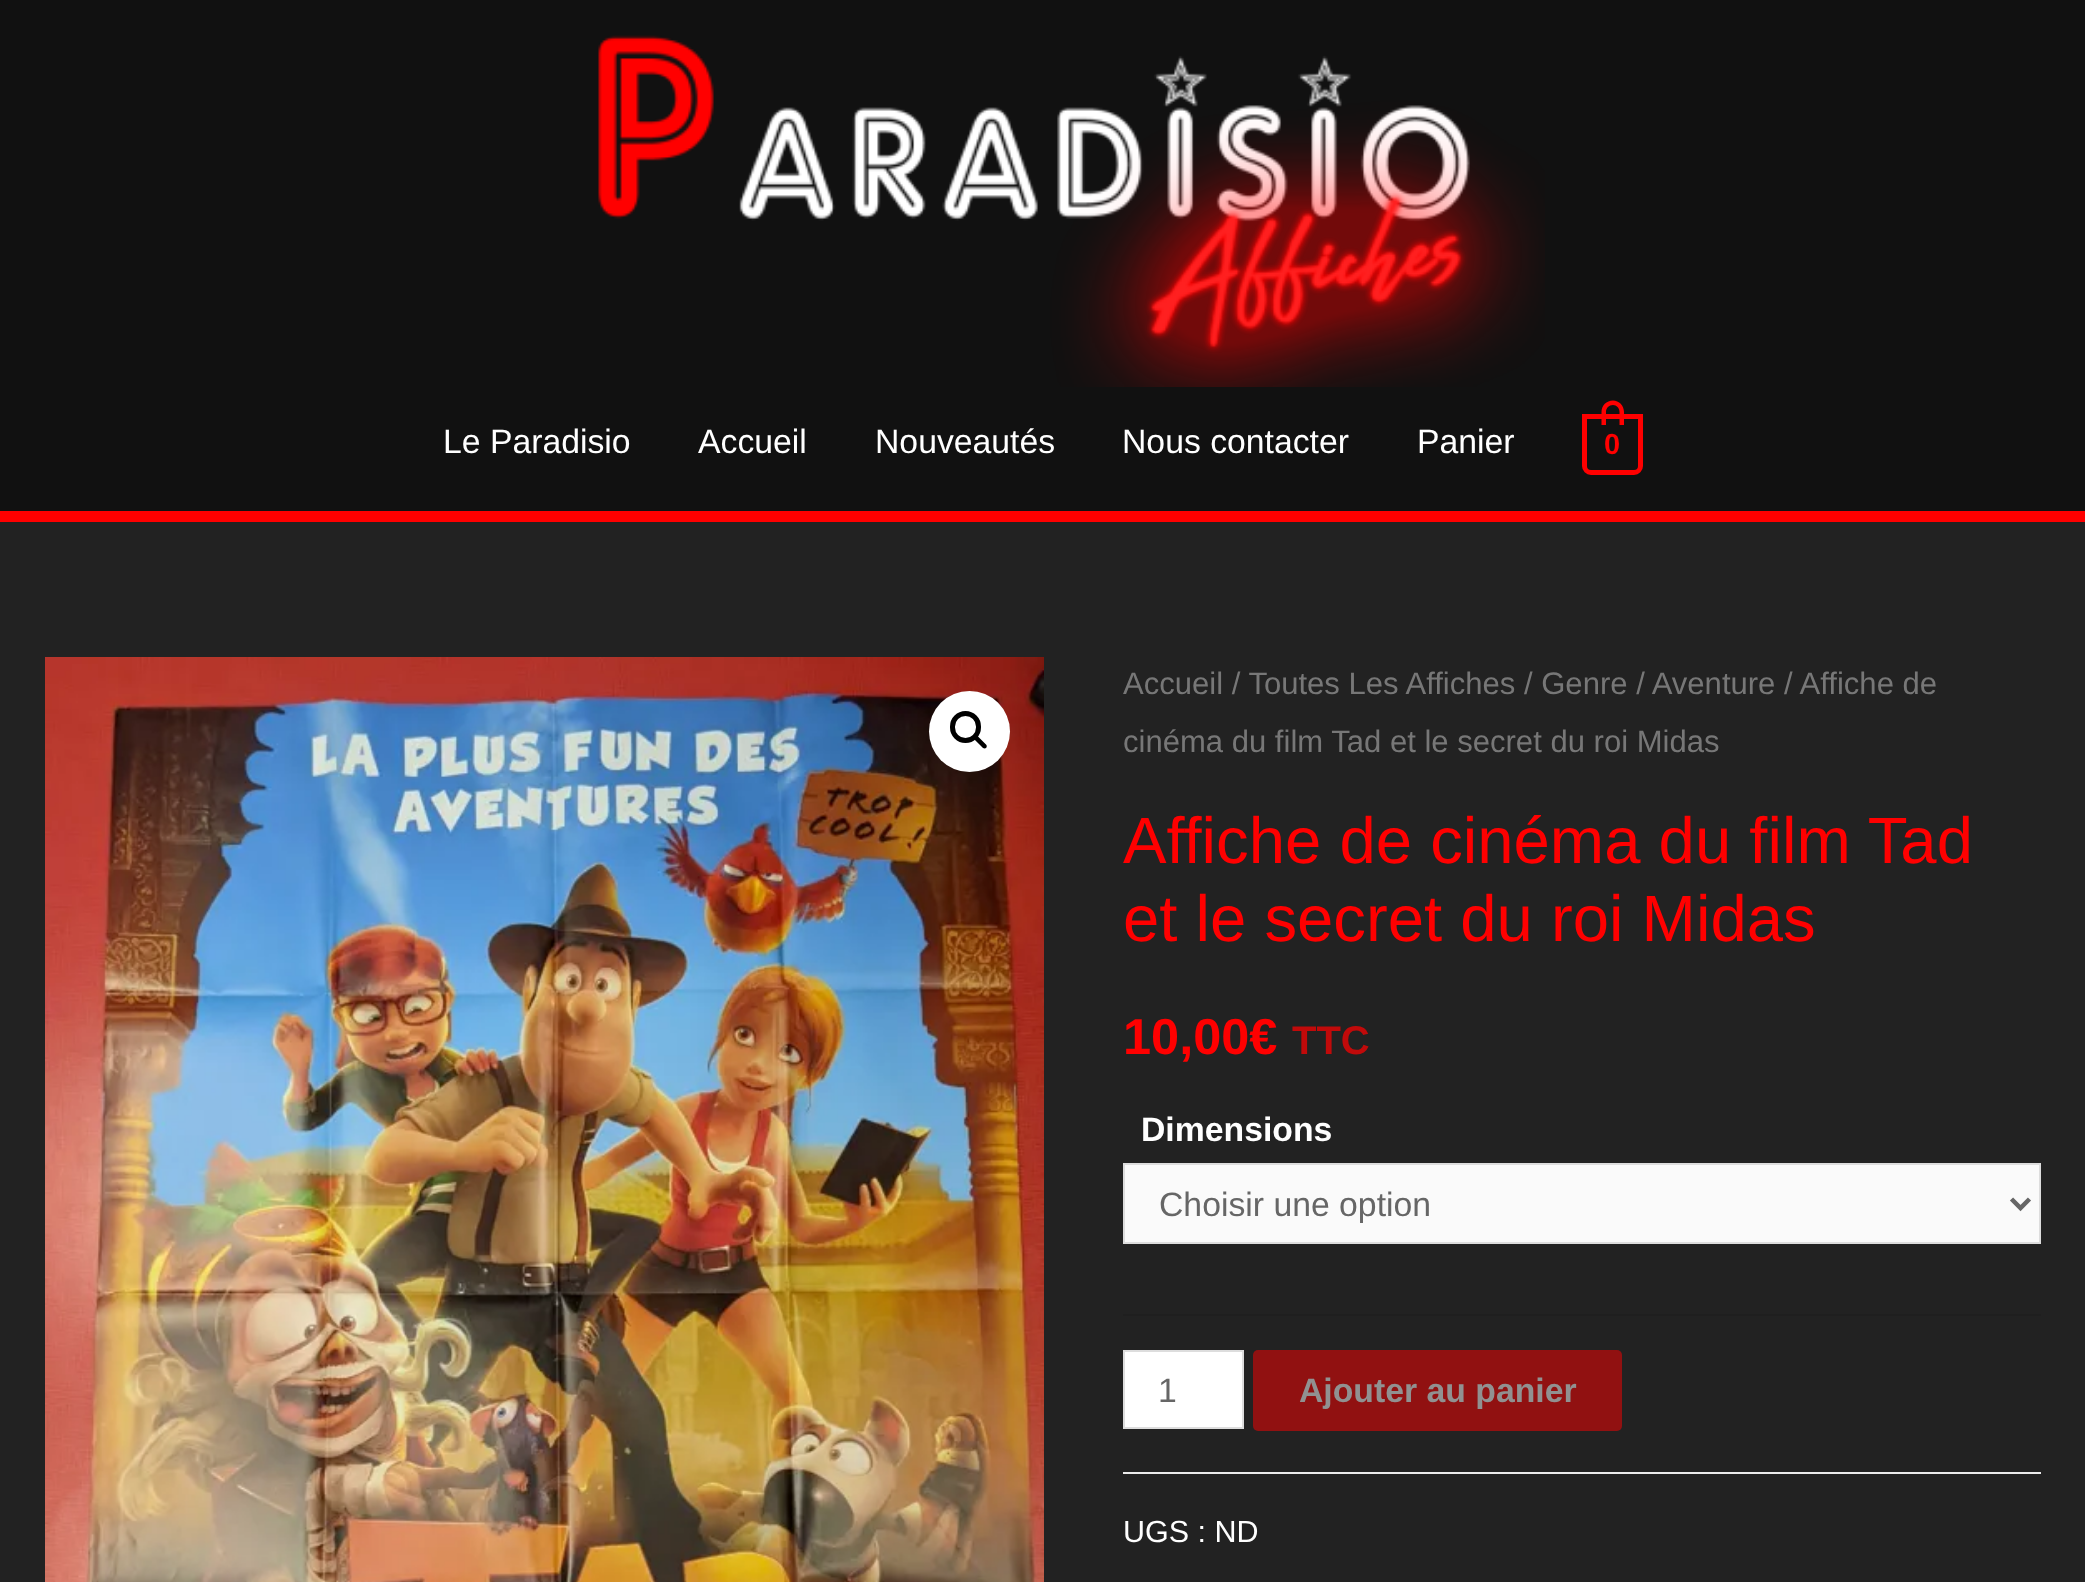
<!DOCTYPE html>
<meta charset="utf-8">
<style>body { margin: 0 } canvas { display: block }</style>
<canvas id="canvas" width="2085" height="1582"></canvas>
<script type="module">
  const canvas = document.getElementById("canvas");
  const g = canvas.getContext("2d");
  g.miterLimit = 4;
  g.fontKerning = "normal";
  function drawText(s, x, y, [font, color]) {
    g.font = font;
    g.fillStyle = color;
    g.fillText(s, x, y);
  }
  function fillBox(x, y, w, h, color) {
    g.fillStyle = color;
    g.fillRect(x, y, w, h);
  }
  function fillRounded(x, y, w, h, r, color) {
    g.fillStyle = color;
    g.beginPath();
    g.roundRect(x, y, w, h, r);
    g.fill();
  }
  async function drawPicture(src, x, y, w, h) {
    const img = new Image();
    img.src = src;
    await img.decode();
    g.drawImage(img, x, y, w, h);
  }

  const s1 = ["33.75px Liberation Sans", "#FFFFFF"];
  const s2 = ["bold 29px Liberation Sans", "#FF0000"];
  const s3 = ["31.05px Liberation Sans", "#777777"];
  const s4 = ["65.25px Liberation Sans", "#FF0000"];
  const s5 = ["bold 50.5px Liberation Sans", "#FF0000"];
  const s6 = ["bold 40px Liberation Sans", "#C10A0A"];
  const s7 = ["bold 33.75px Liberation Sans", "#FFFFFF"];
  const s8 = ["33.75px Liberation Sans", "#666666"];
  const s9 = ["bold 33.75px Liberation Sans", "#919191"];
  const s10 = ["30.5px Liberation Sans", "#FFFFFF"];

  fillBox(0, 0, 2085, 1582, "#222222");
  fillBox(0, 0, 2085, 511, "#111111");
  fillBox(0, 511, 2085, 11, "#FF0000");
  await drawPicture("pic1.png", 598, 35, 947, 352);
  drawText("Le Paradisio", 443, 453, s1);
  drawText("Accueil", 698, 453, s1);
  drawText("Nouveautés", 875, 453, s1);
  drawText("Nous contacter", 1122, 453, s1);
  drawText("Panier", 1417, 453, s1);
  g.beginPath();
  g.roundRect(1584.5, 416.5, 56, 56, [0, 0, 6.5, 6.5]);
  g.strokeStyle = "#FF0000";
  g.lineWidth = 5;
  g.stroke();
  g.fillStyle = "#FF0000";
  g.beginPath();
  g.moveTo(1613, 400.5);
  g.bezierCurveTo(1619, 400.5, 1624, 405.5, 1624, 412);
  g.lineTo(1624, 425);
  g.lineTo(1601.5, 425);
  g.lineTo(1601.5, 412);
  g.bezierCurveTo(1601.5, 405.5, 1606.5, 400.5, 1613, 400.5);
  g.closePath();
  g.moveTo(1613, 405);
  g.bezierCurveTo(1616.5, 405, 1619.5, 408, 1619.5, 412);
  g.lineTo(1619.5, 425);
  g.lineTo(1606, 425);
  g.lineTo(1606, 412);
  g.bezierCurveTo(1606, 408, 1609, 405, 1613, 405);
  g.closePath();
  g.fill("evenodd");
  drawText("0", 1604, 454, s2);
  await drawPicture("pic2.png", 45, 657, 999, 925);
  g.fillStyle = "#FFFFFF";
  g.beginPath();
  g.arc(969.5, 731.5, 40.5, 0, Math.PI * 2);
  g.fill();
  g.beginPath();
  g.roundRect(952.5, 713.5, 26, 27, 13);
  g.strokeStyle = "#000000";
  g.stroke();
  g.fillStyle = "#000000";
  g.beginPath();
  g.moveTo(973.5, 735);
  g.bezierCurveTo(974.5, 734, 976, 734, 976.5, 735);
  g.lineTo(986, 744.5);
  g.bezierCurveTo(987, 745.5, 987, 747, 986, 748);
  g.bezierCurveTo(985.5, 748.5, 984, 748.5, 983, 748);
  g.lineTo(973.5, 738.5);
  g.bezierCurveTo(972.5, 737.5, 972.5, 736, 973.5, 735);
  g.closePath();
  g.fill();
  drawText("Accueil / Toutes Les Affiches / Genre / Aventure / Affiche de", 1123, 694, s3);
  drawText("cinéma du film Tad et le secret du roi Midas", 1123, 752, s3);
  drawText("Affiche de cinéma du film Tad", 1123, 863, s4);
  drawText("et le secret du roi Midas", 1123, 941, s4);
  drawText("10,00€", 1123, 1054, s5);
  drawText("TTC", 1292, 1054, s6);
  fillBox(1123, 1314, 918, 2, "#1F1F1F");
  drawText("Dimensions", 1141, 1141, s7);
  g.fillStyle = "#FAFAFA";
  g.beginPath();
  g.rect(1124, 1164, 916, 79);
  g.fill();
  g.strokeStyle = "#DDDDDD";
  g.lineWidth = 2;
  g.stroke();
  g.beginPath();
  g.moveTo(2011.5, 1199);
  g.lineTo(2020.5, 1208);
  g.lineTo(2029.5, 1199);
  g.strokeStyle = "#666666";
  g.lineWidth = 4.5;
  g.stroke();
  drawText("Choisir une option", 1159, 1216, s8);
  g.fillStyle = "#FFFFFF";
  g.beginPath();
  g.rect(1124, 1351, 119, 77);
  g.fill();
  g.strokeStyle = "#DDDDDD";
  g.lineWidth = 2;
  g.stroke();
  drawText("1", 1158, 1402, s8);
  fillRounded(1253, 1350, 369, 81, 5, "#911111");
  drawText("Ajouter au panier", 1299, 1402, s9);
  fillBox(1123, 1472, 918, 2, "#EBEBEB");
  drawText("UGS : ND", 1123, 1542, s10);
</script>
